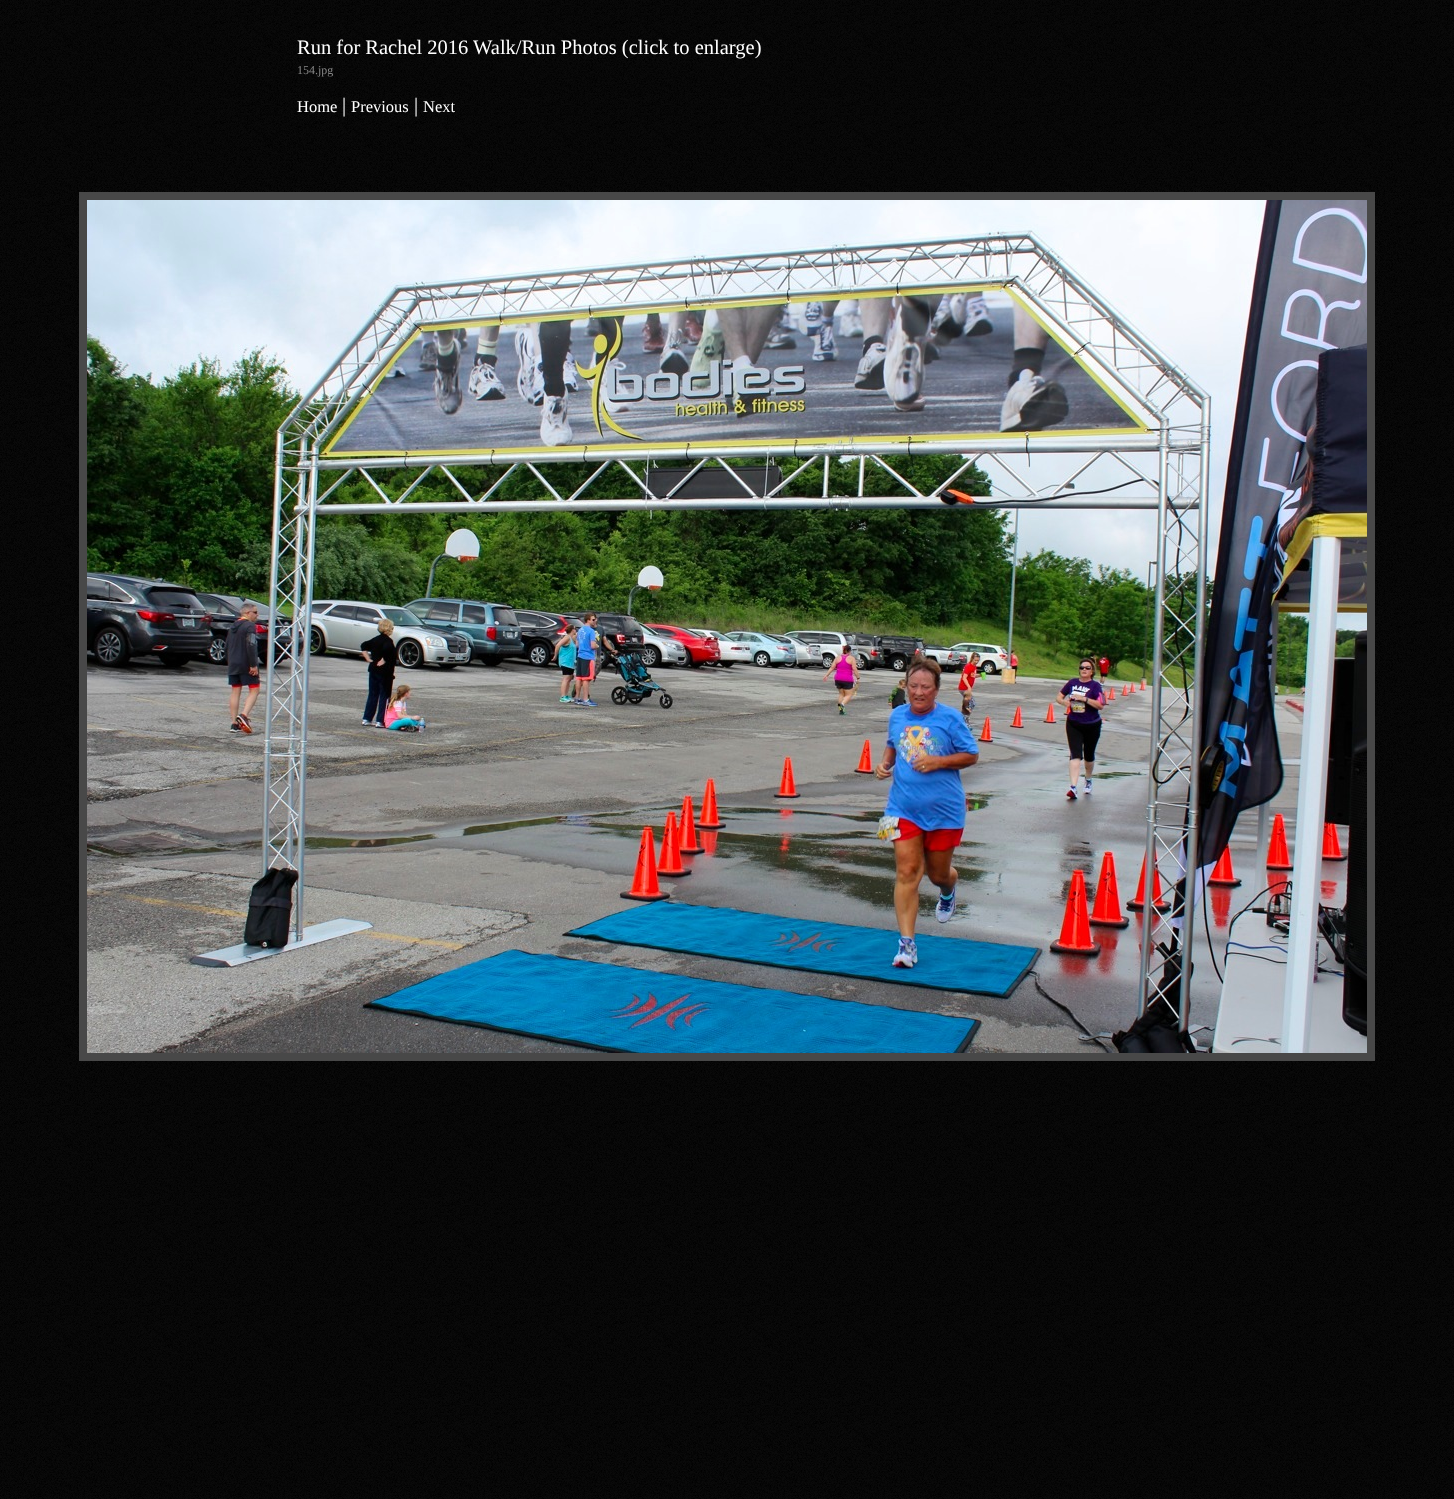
<!DOCTYPE html>
<meta charset="utf-8">
<style>body { margin: 0 } canvas { display: block }</style>
<canvas id="canvas" width="1454" height="1499"></canvas>
<script type="module">
  const canvas = document.getElementById("canvas");
  const g = canvas.getContext("2d");
  g.miterLimit = 4;
  g.fontKerning = "normal";
  function drawText(s, x, y, [font, color]) {
    g.font = font;
    g.fillStyle = color;
    g.fillText(s, x, y);
  }
  function fillBox(x, y, w, h, color) {
    g.fillStyle = color;
    g.fillRect(x, y, w, h);
  }
  async function drawPicture(src, x, y, w, h) {
    const img = new Image();
    img.src = src;
    await img.decode();
    g.drawImage(img, x, y, w, h);
  }

  const s1 = ["20.5px Liberation Serif", "#FFFFFF"];
  const s2 = ["12px Liberation Serif", "#878787"];
  const s3 = ["16.5px Liberation Serif", "#FFFFFF"];

  fillBox(0, 0, 1454, 1499, "#000000");
  await drawPicture("pic1.png", 0, 0, 1454, 1499);
  drawText("Run for Rachel 2016 Walk/Run Photos (click to enlarge)", 297, 54, s1);
  drawText("154.jpg", 297, 74, s2);
  drawText("Home", 297, 112, s3);
  drawText("|", 342, 112, s1);
  drawText("Previous", 351, 112, s3);
  drawText("|", 414, 112, s1);
  drawText("Next", 423, 112, s3);
  g.strokeStyle = "#484848";
  g.lineWidth = 8;
  g.strokeRect(83, 196, 1288, 861);
  await drawPicture("pic2.png", 87, 200, 1280, 853);
</script>
